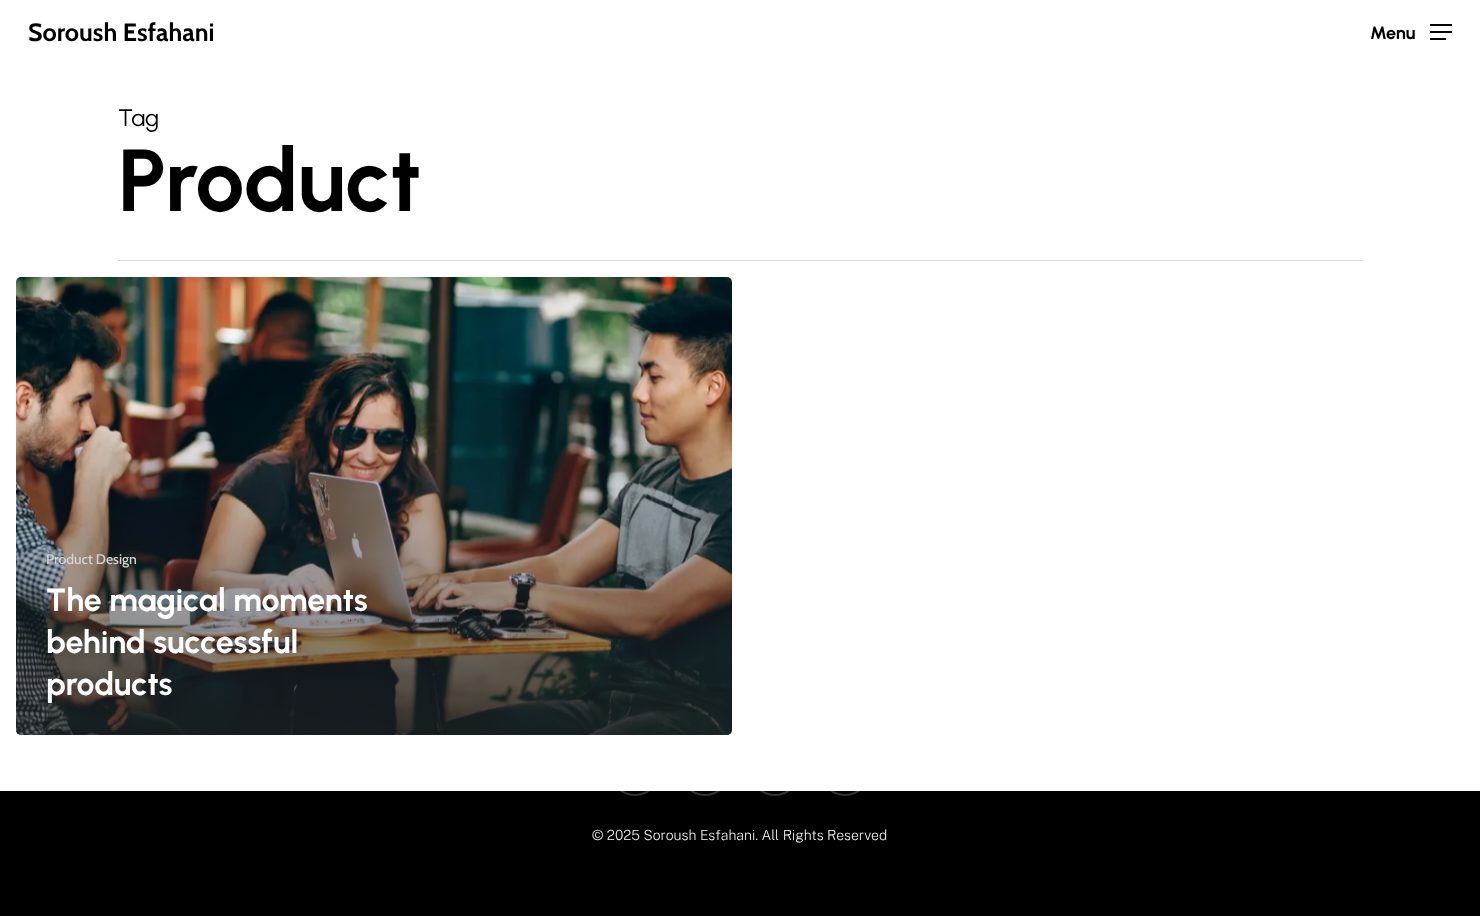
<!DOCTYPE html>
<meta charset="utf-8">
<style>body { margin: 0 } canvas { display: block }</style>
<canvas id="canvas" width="1480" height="916"></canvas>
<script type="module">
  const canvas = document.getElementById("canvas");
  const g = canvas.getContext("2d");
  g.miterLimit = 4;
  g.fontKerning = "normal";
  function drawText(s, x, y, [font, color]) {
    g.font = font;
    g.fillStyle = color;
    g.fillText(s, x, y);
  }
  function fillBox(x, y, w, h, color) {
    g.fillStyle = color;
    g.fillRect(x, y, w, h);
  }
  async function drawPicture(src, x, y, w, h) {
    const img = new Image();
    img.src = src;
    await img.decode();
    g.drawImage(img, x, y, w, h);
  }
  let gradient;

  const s1 = ["bold 25px Cabin", "#000000"];
  const s2 = ["bold 18px Urbanist", "#000000"];
  const s3 = ["24px Urbanist", "#000000"];
  const s4 = ["bold 88px Urbanist", "#000000"];
  const s5 = ["500 14px Cabin", "#D3D2D1"];
  const s6 = ["bold 32px Urbanist", "#FFFFFF"];
  const s7 = ["100 14px Public Sans", "#FFFFFF"];

  fillBox(0, 0, 1480, 916, "#FFFFFF");
  drawText("Soroush Esfahani", 28, 41, s1);
  drawText("Menu", 1370, 39, s2);
  fillBox(1430, 24, 22, 2, "#000000");
  fillBox(1430, 38, 16, 2, "#000000");
  fillBox(1430, 31, 22, 2, "#000000");
  fillBox(118, 260, 1245, 1, "#D9D9D9");
  drawText("Tag", 118, 126, s3);
  drawText("Product", 118, 211, s4);
  fillBox(0, 791, 1480, 125, "#000000");
  g.beginPath();
  g.arc(635, 771, 24, 0, Math.PI * 2);
  g.strokeStyle = "#333333";
  g.lineWidth = 2;
  g.stroke();
  g.beginPath();
  g.arc(705, 771, 24, 0, Math.PI * 2);
  g.stroke();
  g.beginPath();
  g.arc(775, 771, 24, 0, Math.PI * 2);
  g.stroke();
  g.beginPath();
  g.arc(845, 771, 24, 0, Math.PI * 2);
  g.stroke();
  fillBox(610, 746, 260, 45, "#FFFFFF");
  await drawPicture("pic1.png", 16, 277, 716, 458);
  gradient = g.createLinearGradient(376, 392, 376, 737);
  gradient.addColorStop(0, "rgba(35, 35, 35, 0)");
  gradient.addColorStop(1, "rgba(35, 35, 35, 0.65)");
  g.fillStyle = gradient;
  g.beginPath();
  g.roundRect(16, 392, 716, 343, [0, 0, 5, 5]);
  g.fill();
  drawText("Product Design", 46, 564, s5);
  drawText("The magical moments", 46, 611, s6);
  drawText("behind successful", 46, 653, s6);
  drawText("products", 46, 695, s6);
  drawText("© 2025 Soroush Esfahani. All Rights Reserved", 592, 840, s7);
</script>
